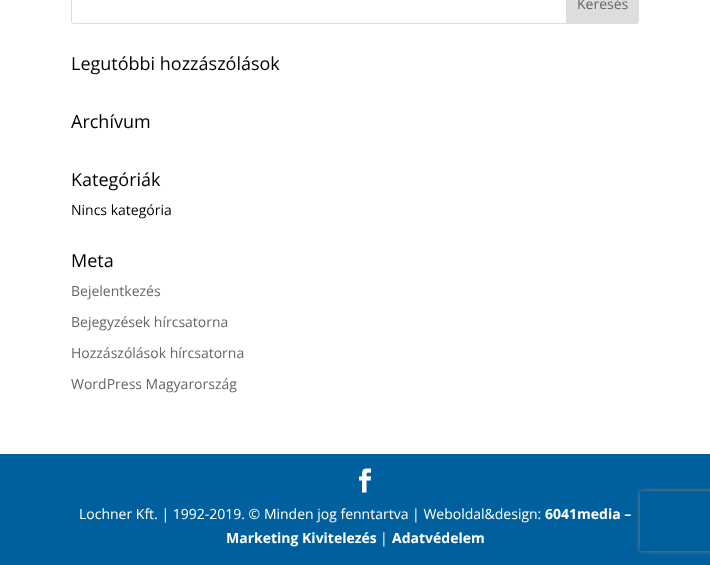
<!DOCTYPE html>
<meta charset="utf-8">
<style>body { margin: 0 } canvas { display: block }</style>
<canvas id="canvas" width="710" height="565"></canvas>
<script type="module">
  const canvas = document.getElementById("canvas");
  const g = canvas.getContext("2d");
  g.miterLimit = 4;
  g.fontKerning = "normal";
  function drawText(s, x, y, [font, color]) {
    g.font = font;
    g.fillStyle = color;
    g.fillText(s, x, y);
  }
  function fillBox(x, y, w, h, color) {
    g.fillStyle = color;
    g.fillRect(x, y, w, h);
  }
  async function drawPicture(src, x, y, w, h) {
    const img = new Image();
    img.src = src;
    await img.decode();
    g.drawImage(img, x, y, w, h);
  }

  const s1 = ["14px Open Sans", "#666666"];
  const s2 = ["18px Open Sans", "#000000"];
  const s3 = ["14px Open Sans", "#000000"];
  const s4 = ["14px Open Sans", "#FFFFFF"];
  const s5 = ["bold 14px Open Sans", "#FFFFFF"];

  fillBox(0, 0, 710, 565, "#FFFFFF");
  g.beginPath();
  g.roundRect(71.5, -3.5, 567, 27, 2.5);
  g.strokeStyle = "#DDDDDD";
  g.stroke();
  g.fillStyle = "#DDDDDD";
  g.beginPath();
  g.moveTo(566.5, -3.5);
  g.lineTo(636, -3.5);
  g.bezierCurveTo(637.5, -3.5, 638.5, -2.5, 638.5, -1);
  g.lineTo(638.5, 21);
  g.bezierCurveTo(638.5, 22.5, 637.5, 23.5, 636, 23.5);
  g.lineTo(566.5, 23.5);
  g.closePath();
  g.fill();
  g.stroke();
  drawText("Keresés", 577, 9, s1);
  drawText("Legutóbbi hozzászólások", 71, 70, s2);
  drawText("Archívum", 71, 128, s2);
  drawText("Kategóriák", 71, 186, s2);
  drawText("Nincs kategória", 71, 215, s3);
  drawText("Meta", 71, 267, s2);
  drawText("Bejelentkezés", 71, 296, s1);
  drawText("Bejegyzések hírcsatorna", 71, 327, s1);
  drawText("Hozzászólások hírcsatorna", 71, 358, s1);
  drawText("WordPress Magyarország", 71, 389, s1);
  fillBox(0, 454, 710, 111, "#005F9D");
  await drawPicture("pic1.png", 359, 468, 13, 25);
  drawText("Lochner Kft. | 1992-2019. © Minden jog fenntartva | Weboldal&design:", 79, 519, s4);
  drawText("6041media –", 545, 519, s5);
  drawText("Marketing Kivitelezés", 226, 543, s5);
  drawText("|", 380, 543, s4);
  drawText("Adatvédelem", 392, 543, s5);
  g.save();
  g.beginPath();
  g.moveTo(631, 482);
  g.lineTo(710, 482);
  g.lineTo(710, 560);
  g.lineTo(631, 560);
  g.closePath();
  g.moveTo(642, 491);
  g.lineTo(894, 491);
  g.bezierCurveTo(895, 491, 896, 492, 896, 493);
  g.lineTo(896, 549);
  g.bezierCurveTo(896, 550, 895, 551, 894, 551);
  g.lineTo(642, 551);
  g.bezierCurveTo(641, 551, 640, 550, 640, 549);
  g.lineTo(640, 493);
  g.bezierCurveTo(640, 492, 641, 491, 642, 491);
  g.closePath();
  g.clip("evenodd");
  g.fillStyle = "#808080";
  g.filter = "blur(2.5px)";
  g.beginPath();
  g.roundRect(640, 491, 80, 60, 2);
  g.fill();
  g.filter = "none";
  g.restore();
</script>
